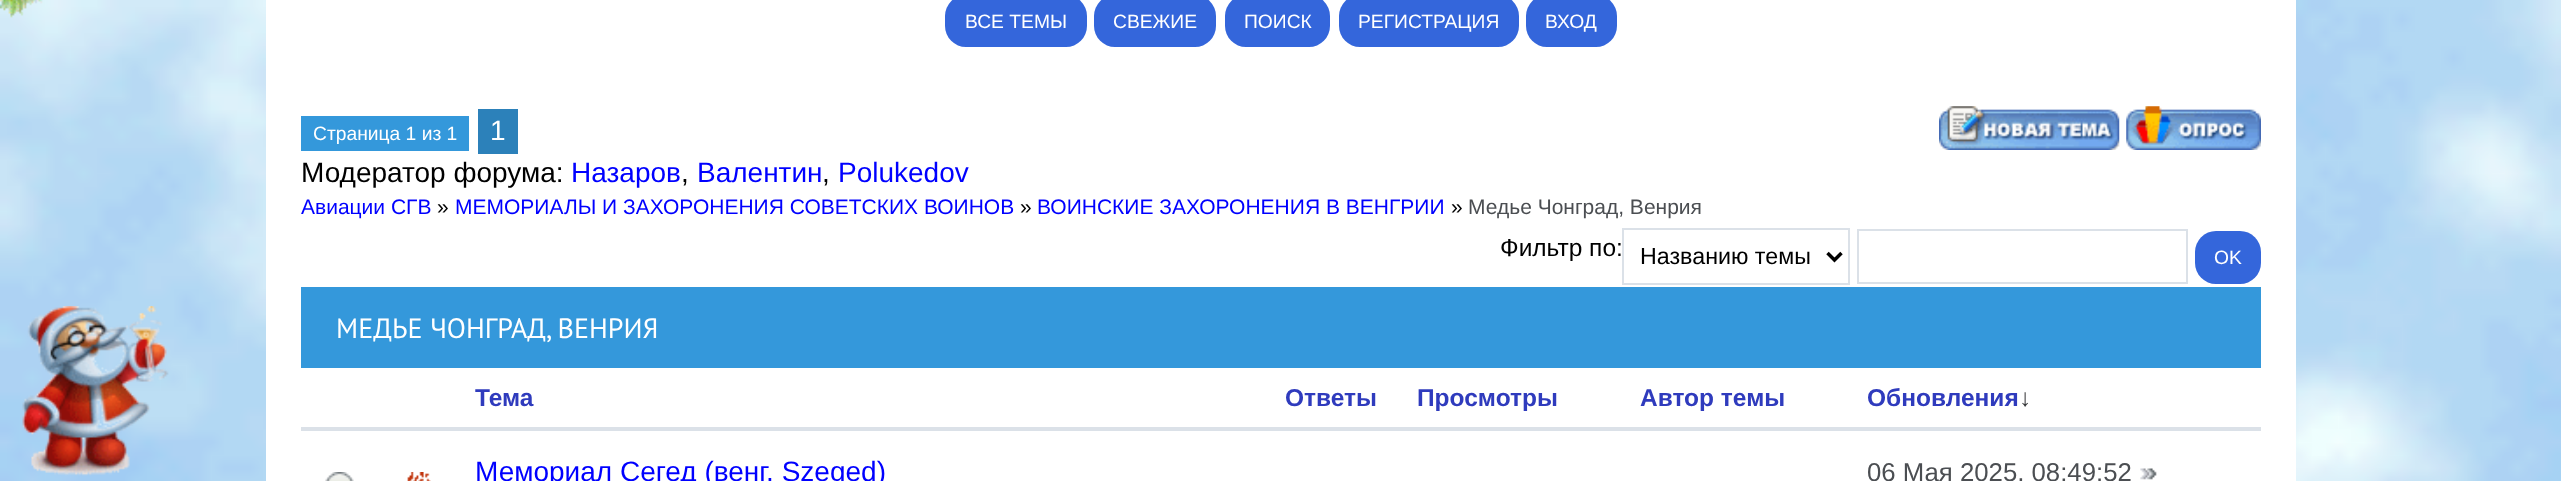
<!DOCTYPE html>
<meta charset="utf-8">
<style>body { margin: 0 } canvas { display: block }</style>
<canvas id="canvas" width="2561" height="481"></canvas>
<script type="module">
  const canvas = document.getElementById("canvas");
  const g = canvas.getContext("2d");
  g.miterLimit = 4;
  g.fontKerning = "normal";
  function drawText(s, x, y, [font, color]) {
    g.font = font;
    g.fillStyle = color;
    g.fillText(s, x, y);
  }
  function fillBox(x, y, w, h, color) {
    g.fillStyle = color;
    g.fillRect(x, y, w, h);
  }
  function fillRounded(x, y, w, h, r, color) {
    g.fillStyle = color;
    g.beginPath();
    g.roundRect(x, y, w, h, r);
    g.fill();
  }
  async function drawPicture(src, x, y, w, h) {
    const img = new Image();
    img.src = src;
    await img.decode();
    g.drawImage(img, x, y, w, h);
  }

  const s1 = ["19.25px Liberation Sans", "#FFFFFF"];
  const s2 = ["28px Liberation Sans", "#FFFFFF"];
  const s3 = ["28px Liberation Sans", "#000000"];
  const s4 = ["28px Liberation Sans", "#0000FF"];
  const s5 = ["21px Liberation Sans", "#0000FF"];
  const s6 = ["21px Liberation Sans", "#000000"];
  const s7 = ["21px Liberation Sans", "#4B4E52"];
  const s8 = ["24.5px Liberation Sans", "#000000"];
  const s9 = ["23.25px Liberation Sans", "#000000"];
  const s10 = ["28px PT Sans", "#FFFFFF"];
  const s11 = ["bold 24.5px Liberation Sans", "#2F3BBD"];
  const s12 = ["bold 24.5px Liberation Sans", "#38393B"];
  const s13 = ["25.75px Liberation Sans", "#4B4E52"];

  fillBox(0, 0, 2561, 481, "#FFFFFF");
  await drawPicture("pic1.png", 0, 0, 2561, 481);
  await drawPicture("pic2.png", 0, 0, 43, 18);
  await drawPicture("pic3.png", 22, 306, 147, 170);
  fillBox(266, 0, 2030, 481, "#FFFFFF");
  fillRounded(945, -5, 142, 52, 21, "#3466DB");
  drawText("ВСЕ ТЕМЫ", 965, 28, s1);
  fillRounded(1094, -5, 122, 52, 21, "#3466DB");
  drawText("СВЕЖИЕ", 1113, 28, s1);
  fillRounded(1225, -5, 105, 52, 21, "#3466DB");
  drawText("ПОИСК", 1244, 28, s1);
  fillRounded(1339, -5, 180, 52, 21, "#3466DB");
  drawText("РЕГИСТРАЦИЯ", 1358, 28, s1);
  fillRounded(1526, -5, 91, 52, 21, "#3466DB");
  drawText("ВХОД", 1545, 28, s1);
  fillBox(301, 116, 168, 35, "#3498DB");
  drawText("Страница 1 из 1", 313, 140, s1);
  fillBox(478, 109, 40, 45, "#2C81BA");
  drawText("1", 490, 140, s2);
  await drawPicture("pic4.png", 1939, 106, 181, 44);
  await drawPicture("pic5.png", 2126, 106, 135, 44);
  drawText("Модератор форума:", 301, 182, s3);
  drawText("Назаров", 571, 182, s4);
  drawText(",", 681, 182, s3);
  drawText("Валентин", 697, 182, s4);
  drawText(",", 822, 182, s3);
  drawText("Polukedov", 838, 182, s4);
  drawText("Авиации СГВ", 301, 214, s5);
  drawText("»", 437, 214, s6);
  drawText("МЕМОРИАЛЫ И ЗАХОРОНЕНИЯ СОВЕТСКИХ ВОИНОВ", 455, 214, s5);
  drawText("»", 1020, 214, s6);
  drawText("ВОИНСКИЕ ЗАХОРОНЕНИЯ В ВЕНГРИИ", 1037, 214, s5);
  drawText("»", 1451, 214, s6);
  drawText("Медье Чонград, Венрия", 1468, 214, s7);
  drawText("Фильтр по:", 1500, 256, s8);
  g.strokeStyle = "#DBE1E8";
  g.lineWidth = 2;
  g.strokeRect(1623, 229, 226, 55);
  g.beginPath();
  g.moveTo(1827.5, 253);
  g.lineTo(1834.5, 260);
  g.lineTo(1841.5, 253);
  g.strokeStyle = "#000000";
  g.lineWidth = 3.5;
  g.stroke();
  drawText("Названию темы", 1640, 264, s9);
  g.strokeStyle = "#DBE1E8";
  g.lineWidth = 2;
  g.strokeRect(1858, 230, 329, 53);
  fillRounded(2195, 231, 66, 53, 21, "#3466DB");
  drawText("OK", 2214, 264, s1);
  fillBox(301, 287, 1960, 81, "#3498DB");
  drawText("МЕДЬЕ ЧОНГРАД, ВЕНРИЯ", 336, 338, s10);
  drawText("Тема", 475, 406, s11);
  drawText("Ответы", 1285, 406, s11);
  drawText("Просмотры", 1417, 406, s11);
  drawText("Автор темы", 1640, 406, s11);
  drawText("Обновления", 1867, 406, s11);
  drawText("↓", 2019, 406, s12);
  fillBox(301, 427, 1960, 4, "#DBE1E8");
  await drawPicture("pic6.png", 325, 472, 29, 9);
  await drawPicture("pic7.png", 407, 472, 24, 9);
  drawText("Мемориал Сегед (венг. Szeged)", 475, 481, s4);
  drawText("06 Мая 2025, 08:49:52", 1867, 481, s13);
  await drawPicture("pic8.png", 2140, 468, 17, 12);
</script>
